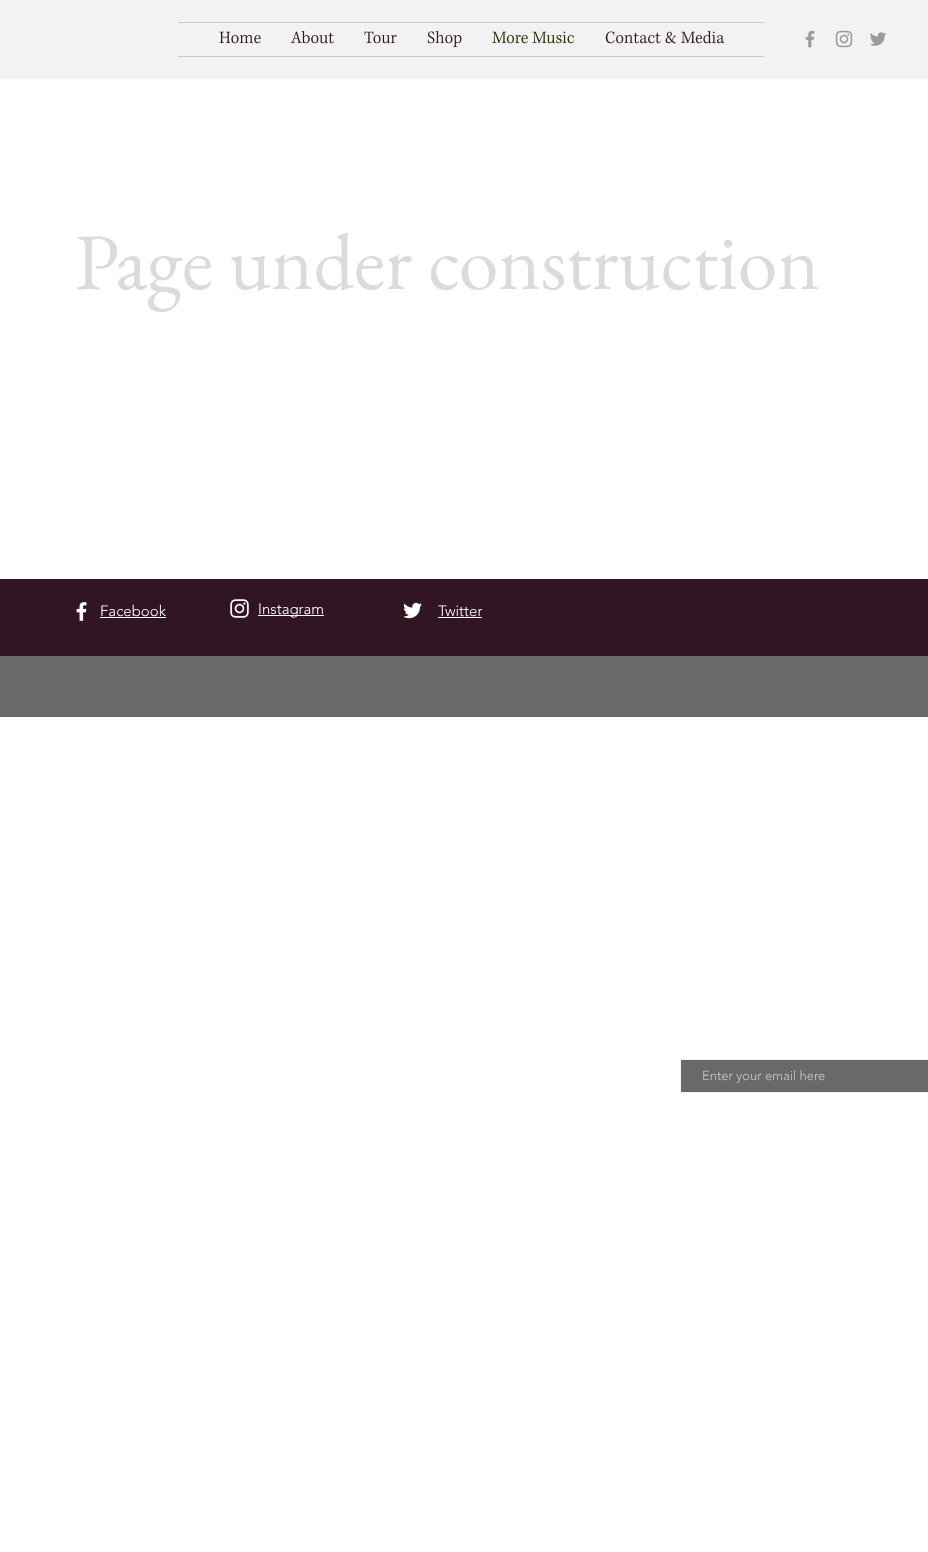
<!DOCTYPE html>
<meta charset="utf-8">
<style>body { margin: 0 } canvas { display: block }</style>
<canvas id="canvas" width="928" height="1552"></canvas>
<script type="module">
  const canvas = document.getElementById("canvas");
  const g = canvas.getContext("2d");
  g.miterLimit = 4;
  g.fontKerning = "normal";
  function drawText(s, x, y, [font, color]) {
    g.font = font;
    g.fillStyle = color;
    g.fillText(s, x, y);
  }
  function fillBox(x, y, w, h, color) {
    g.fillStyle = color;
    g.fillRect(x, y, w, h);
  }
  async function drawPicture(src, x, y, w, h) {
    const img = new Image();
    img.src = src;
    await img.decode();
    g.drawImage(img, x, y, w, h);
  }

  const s1 = ["80px EB Garamond", "#DBDBDB"];
  const s2 = ["300 15px 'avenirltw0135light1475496'", "#FFFFFF"];
  const s3 = ["300 13px 'avenirltw0135light1475496'", "#C9C9C9"];

  fillBox(0, 0, 928, 1552, "#FFFFFF");
  fillBox(0, 0, 928, 79, "#F2F2F2");
  fillBox(178, 22, 586, 1, "#CACACA");
  fillBox(178, 56, 586, 1, "#CACACA");
  await drawPicture("pic1.png", 219, 31, 42, 13);
  await drawPicture("pic2.png", 290, 31, 44, 13);
  await drawPicture("pic3.png", 364, 31, 33, 13);
  await drawPicture("pic4.png", 427, 31, 35, 17);
  await drawPicture("pic5.png", 492, 31, 82, 13);
  await drawPicture("pic6.png", 605, 31, 120, 13);
  await drawPicture("pic7.png", 805, 30, 10, 18);
  await drawPicture("pic8.png", 835, 30, 18, 18);
  await drawPicture("pic9.png", 870, 32, 16, 14);
  drawText("Page under construction", 75, 289, s1);
  fillBox(0, 579, 928, 77, "#321523");
  await drawPicture("pic10.png", 76, 602, 11, 19);
  drawText("Facebook", 100, 616, s2);
  fillBox(100, 617, 66, 1, "#FFFFFF");
  await drawPicture("pic11.png", 230, 599, 19, 19);
  fillBox(258, 615, 66, 1, "#FFFFFF");
  drawText("Instagram", 258, 614, s2);
  await drawPicture("pic12.png", 403, 602, 19, 17);
  drawText("Twitter", 438, 616, s2);
  fillBox(438, 617, 44, 1, "#FFFFFF");
  g.fillStyle = "#696969";
  g.beginPath();
  g.rect(680.5, 1059.5, 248, 33);
  g.fill();
  g.strokeStyle = "#F2F2F2";
  g.stroke();
  drawText("Enter your email here", 702, 1080, s3);
  fillBox(0, 656, 928, 61, "#696969");
</script>
